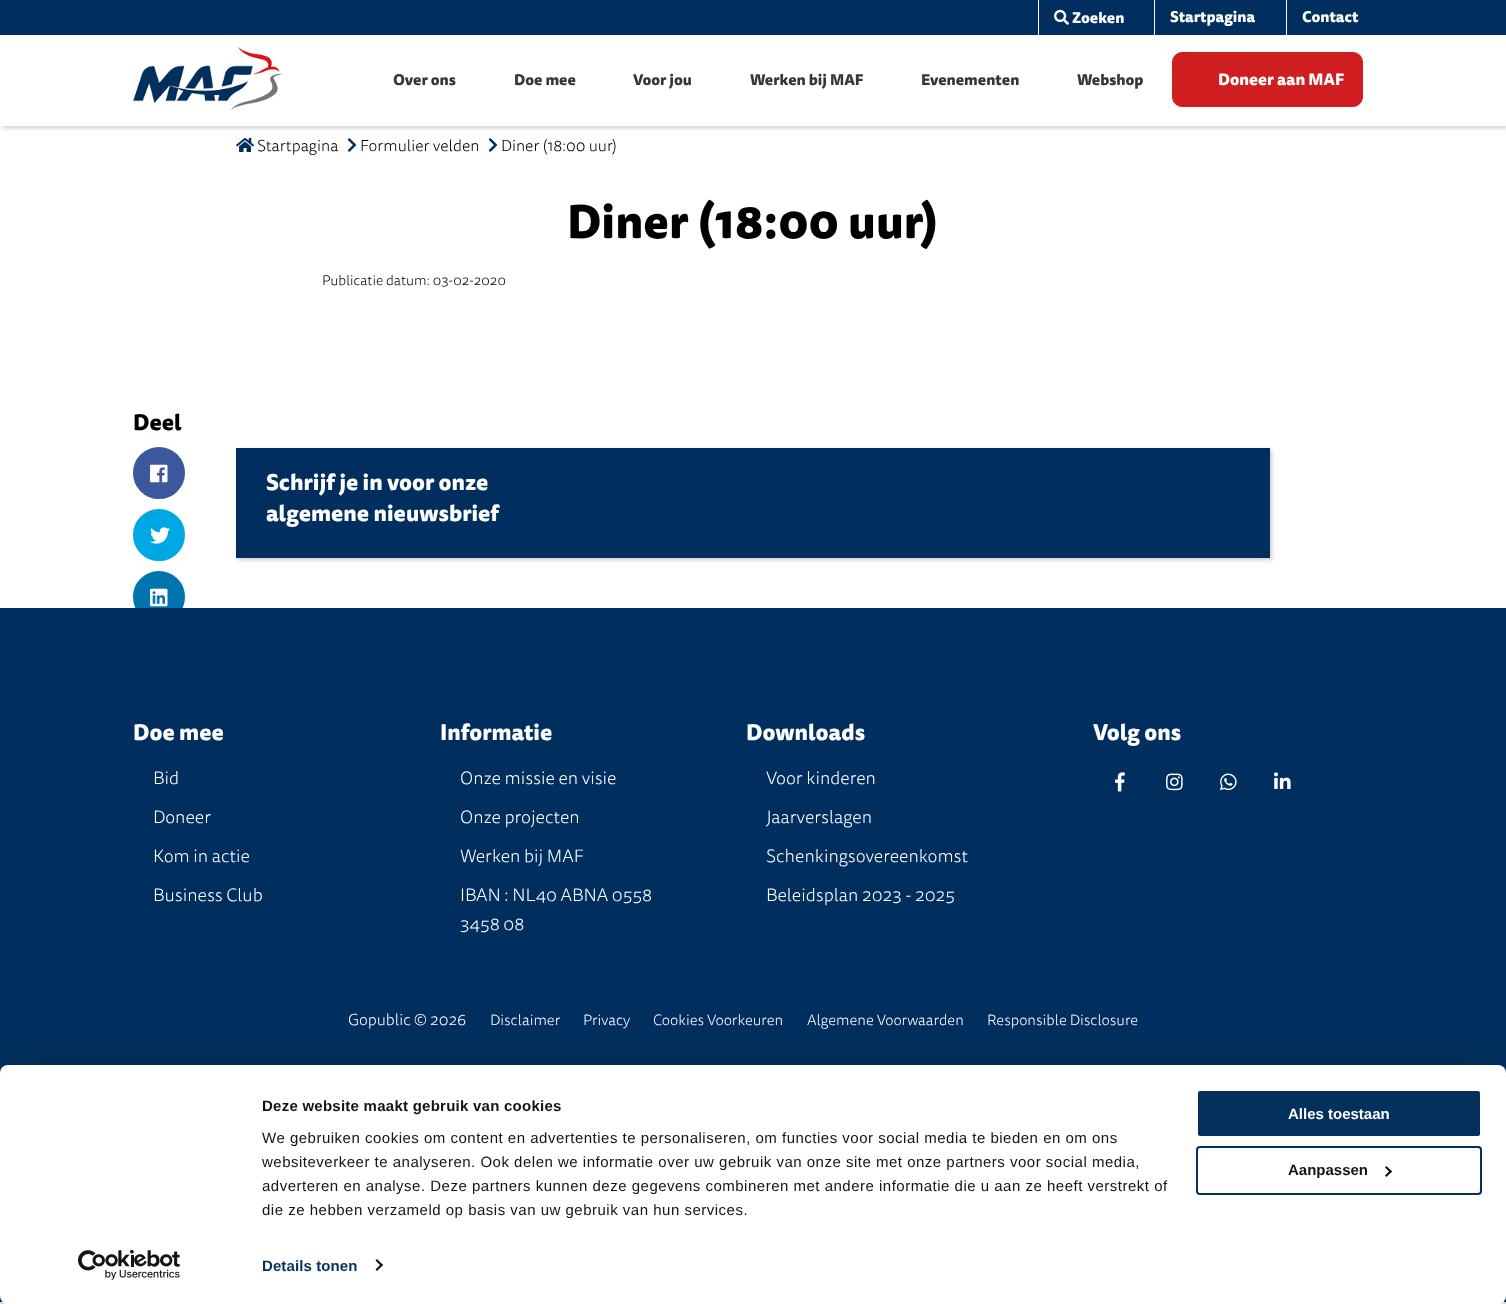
<!DOCTYPE html>
<meta charset="utf-8">
<style>body { margin: 0 } canvas { display: block }</style>
<canvas id="canvas" width="1506" height="1304"></canvas>
<script type="module">
  const canvas = document.getElementById("canvas");
  const g = canvas.getContext("2d");
  g.miterLimit = 4;
  g.fontKerning = "normal";
  function drawText(s, x, y, [font, color]) {
    g.font = font;
    g.fillStyle = color;
    g.fillText(s, x, y);
  }
  function fillBox(x, y, w, h, color) {
    g.fillStyle = color;
    g.fillRect(x, y, w, h);
  }
  function fillRounded(x, y, w, h, r, color) {
    g.fillStyle = color;
    g.beginPath();
    g.roundRect(x, y, w, h, r);
    g.fill();
  }
  async function drawPicture(src, x, y, w, h) {
    const img = new Image();
    img.src = src;
    await img.decode();
    g.drawImage(img, x, y, w, h);
  }

  const s1 = ["800 15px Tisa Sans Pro", "#FFFFFF"];
  const s2 = ["800 15px Tisa Sans Pro", "#393535"];
  const s3 = ["800 16px Tisa Sans Pro", "#FFFFFF"];
  const s4 = ["300 16px Tisa Sans Pro", "#000000"];
  const s5 = ["800 46px Tisa Sans Pro", "#000000"];
  const s6 = ["300 14px Tisa Sans Pro", "#000000"];
  const s7 = ["800 22px Tisa Sans Pro", "#000000"];
  const s8 = ["800 22px Tisa Sans Pro", "#FFFFFF"];
  const s9 = ["300 18px Tisa Sans Pro", "#FFFFFF"];
  const s10 = ["300 16px Tisa Sans Pro", "#FFFFFF"];
  const s11 = ["300 15px Tisa Sans Pro", "#FFFFFF"];
  const s12 = ["bold 15px Liberation Sans", "#141414"];
  const s13 = ["15px Liberation Sans", "#141414"];
  const s14 = ["bold 15px Liberation Sans", "#03305D"];
  const s15 = ["bold 15px Liberation Sans", "#FFFFFF"];

  fillBox(0, 0, 1506, 1304, "#FFFFFF");
  g.save();
  g.beginPath();
  g.moveTo(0, 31);
  g.lineTo(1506, 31);
  g.lineTo(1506, 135);
  g.lineTo(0, 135);
  g.closePath();
  g.moveTo(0, 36);
  g.lineTo(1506, 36);
  g.lineTo(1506, 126);
  g.lineTo(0, 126);
  g.closePath();
  g.clip("evenodd");
  g.fillStyle = "rgba(0, 0, 0, 0.2)";
  g.filter = "blur(2px)";
  g.beginPath();
  g.rect(2, 38, 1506, 90);
  g.fill();
  g.filter = "none";
  g.restore();
  fillBox(0, 0, 1506, 35, "#002F5F");
  fillBox(1038, 0, 1, 36, "#FFFFFF");
  await drawPicture("pic1.png", 1054, 9, 15, 16);
  drawText("Zoeken", 1072, 23, s1);
  fillBox(1154, 0, 1, 35, "#FFFFFF");
  drawText("Startpagina", 1170, 22, s1);
  fillBox(1286, 0, 1, 35, "#FFFFFF");
  drawText("Contact", 1302, 22, s1);
  await drawPicture("pic2.png", 133, 46, 150, 65);
  drawText("Over ons", 393, 85, s2);
  drawText("Doe mee", 514, 85, s2);
  drawText("Voor jou", 633, 85, s2);
  drawText("Werken bij MAF", 750, 85, s2);
  drawText("Evenementen", 921, 85, s2);
  drawText("Webshop", 1077, 85, s2);
  g.fillStyle = "#D01D20";
  g.beginPath();
  g.roundRect(1172.5, 52.5, 190, 54, 9.5);
  g.fill();
  g.strokeStyle = "#D01D20";
  g.stroke();
  drawText("Doneer aan MAF", 1218, 85, s3);
  await drawPicture("pic3.png", 236, 138, 18, 14);
  drawText("Startpagina", 257, 151, s4);
  await drawPicture("pic4.png", 347, 138, 10, 14);
  drawText("Formulier velden", 360, 151, s4);
  await drawPicture("pic4.png", 488, 138, 10, 14);
  drawText("Diner (18:00 uur)", 501, 151, s4);
  drawText("Diner (18:00 uur)", 567, 238, s5);
  drawText("Publicatie datum: 03-02-2020", 322, 285, s6);
  drawText("Deel", 133, 430, s7);
  g.fillStyle = "#3B579D";
  g.beginPath();
  g.arc(159, 473, 23.5, 0, Math.PI * 2);
  g.fill();
  g.strokeStyle = "#3B579D";
  g.lineWidth = 5;
  g.stroke();
  await drawPicture("pic5.png", 150, 464, 18, 19);
  g.fillStyle = "#00A7E5";
  g.beginPath();
  g.arc(159, 535, 23.5, 0, Math.PI * 2);
  g.fill();
  g.strokeStyle = "#00A7E5";
  g.stroke();
  await drawPicture("pic6.png", 150, 527, 20, 17);
  g.fillStyle = "#0173AF";
  g.beginPath();
  g.arc(159, 597, 23.5, 0, Math.PI * 2);
  g.fill();
  g.strokeStyle = "#0173AF";
  g.stroke();
  await drawPicture("pic7.png", 150, 588, 18, 19);
  g.fillStyle = "rgba(0, 0, 0, 0.2)";
  g.filter = "blur(2px)";
  g.beginPath();
  g.rect(238, 450, 1034, 110);
  g.fill();
  g.filter = "none";
  fillBox(236, 448, 1034, 110, "#002F5F");
  drawText("Schrijf je in voor onze", 266, 490, s8);
  drawText("algemene nieuwsbrief", 266, 521, s8);
  fillBox(0, 608, 1506, 694, "#002F5F");
  drawText("Doe mee", 133, 740, s8);
  drawText("Bid", 153, 784, s9);
  drawText("Doneer", 153, 823, s9);
  drawText("Kom in actie", 153, 862, s9);
  drawText("Business Club", 153, 901, s9);
  drawText("Informatie", 440, 740, s8);
  drawText("Onze missie en visie", 460, 784, s9);
  drawText("Onze projecten", 460, 823, s9);
  drawText("Werken bij MAF", 460, 862, s9);
  drawText("IBAN : NL40 ABNA 0558", 460, 901, s9);
  drawText("3458 08", 460, 930, s9);
  drawText("Downloads", 746, 740, s8);
  drawText("Voor kinderen", 766, 784, s9);
  drawText("Jaarverslagen", 766, 823, s9);
  drawText("Schenkingsovereenkomst", 766, 862, s9);
  drawText("Beleidsplan 2023 - 2025", 766, 901, s9);
  drawText("Volg ons", 1093, 740, s8);
  await drawPicture("pic8.png", 1115, 772, 10, 20);
  await drawPicture("pic9.png", 1166, 773, 17, 18);
  await drawPicture("pic10.png", 1220, 773, 17, 18);
  await drawPicture("pic11.png", 1274, 772, 17, 17);
  drawText("Gopublic © 2026", 348, 1025, s10);
  drawText("Disclaimer", 490, 1025, s11);
  drawText("Privacy", 583, 1025, s11);
  drawText("Cookies Voorkeuren", 653, 1025, s11);
  drawText("Algemene Voorwaarden", 807, 1025, s11);
  drawText("Responsible Disclosure", 987, 1025, s11);
  g.fillStyle = "rgba(0, 0, 0, 0.3)";
  g.filter = "blur(35px)";
  g.beginPath();
  g.roundRect(0, 1095, 1506, 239, 8);
  g.fill();
  g.filter = "none";
  fillRounded(0, 1065, 1506, 239, 8, "#FFFFFF");
  g.letterSpacing = "0.25px";
  drawText("Deze website maakt gebruik van cookies", 262, 1111, s12);
  g.letterSpacing = "0.5px";
  drawText("We gebruiken cookies om content en advertenties te personaliseren, om functies voor social media te bieden en om ons", 262, 1143, s13);
  drawText("websiteverkeer te analyseren. Ook delen we informatie over uw gebruik van onze site met onze partners voor social media,", 262, 1167, s13);
  drawText("adverteren en analyse. Deze partners kunnen deze gegevens combineren met andere informatie die u aan ze heeft verstrekt of", 262, 1191, s13);
  drawText("die ze hebben verzameld op basis van uw gebruik van hun services.", 262, 1215, s13);
  g.letterSpacing = "0.1px";
  drawText("Details tonen", 262, 1271, s14);
  g.fillStyle = "#141414";
  g.beginPath();
  g.moveTo(377, 1259);
  g.lineTo(383, 1265);
  g.lineTo(381.5, 1266.5);
  g.lineTo(375.5, 1260.5);
  g.closePath();
  g.fill();
  g.beginPath();
  g.moveTo(381.5, 1263.5);
  g.lineTo(383, 1265);
  g.lineTo(377, 1271);
  g.lineTo(375.5, 1269.5);
  g.closePath();
  g.fill();
  g.fillStyle = "#03305D";
  g.beginPath();
  g.roundRect(1197, 1090, 284, 47, 3);
  g.fill();
  g.strokeStyle = "#FFFFFF";
  g.lineWidth = 2;
  g.stroke();
  g.letterSpacing = "0px";
  drawText("Alles toestaan", 1288, 1119, s15);
  g.beginPath();
  g.roundRect(1197, 1147, 284, 47, 3);
  g.strokeStyle = "#03305D";
  g.stroke();
  drawText("Aanpassen", 1288, 1175, s12);
  g.beginPath();
  g.moveTo(1386.5, 1166);
  g.lineTo(1392, 1171.5);
  g.lineTo(1390.5, 1173);
  g.lineTo(1385, 1167.5);
  g.closePath();
  g.fill();
  g.beginPath();
  g.moveTo(1390.5, 1170);
  g.lineTo(1392, 1171.5);
  g.lineTo(1386.5, 1177);
  g.lineTo(1385, 1175.5);
  g.closePath();
  g.fill();
  await drawPicture("pic12.png", 78, 1250, 102, 30);
</script>
